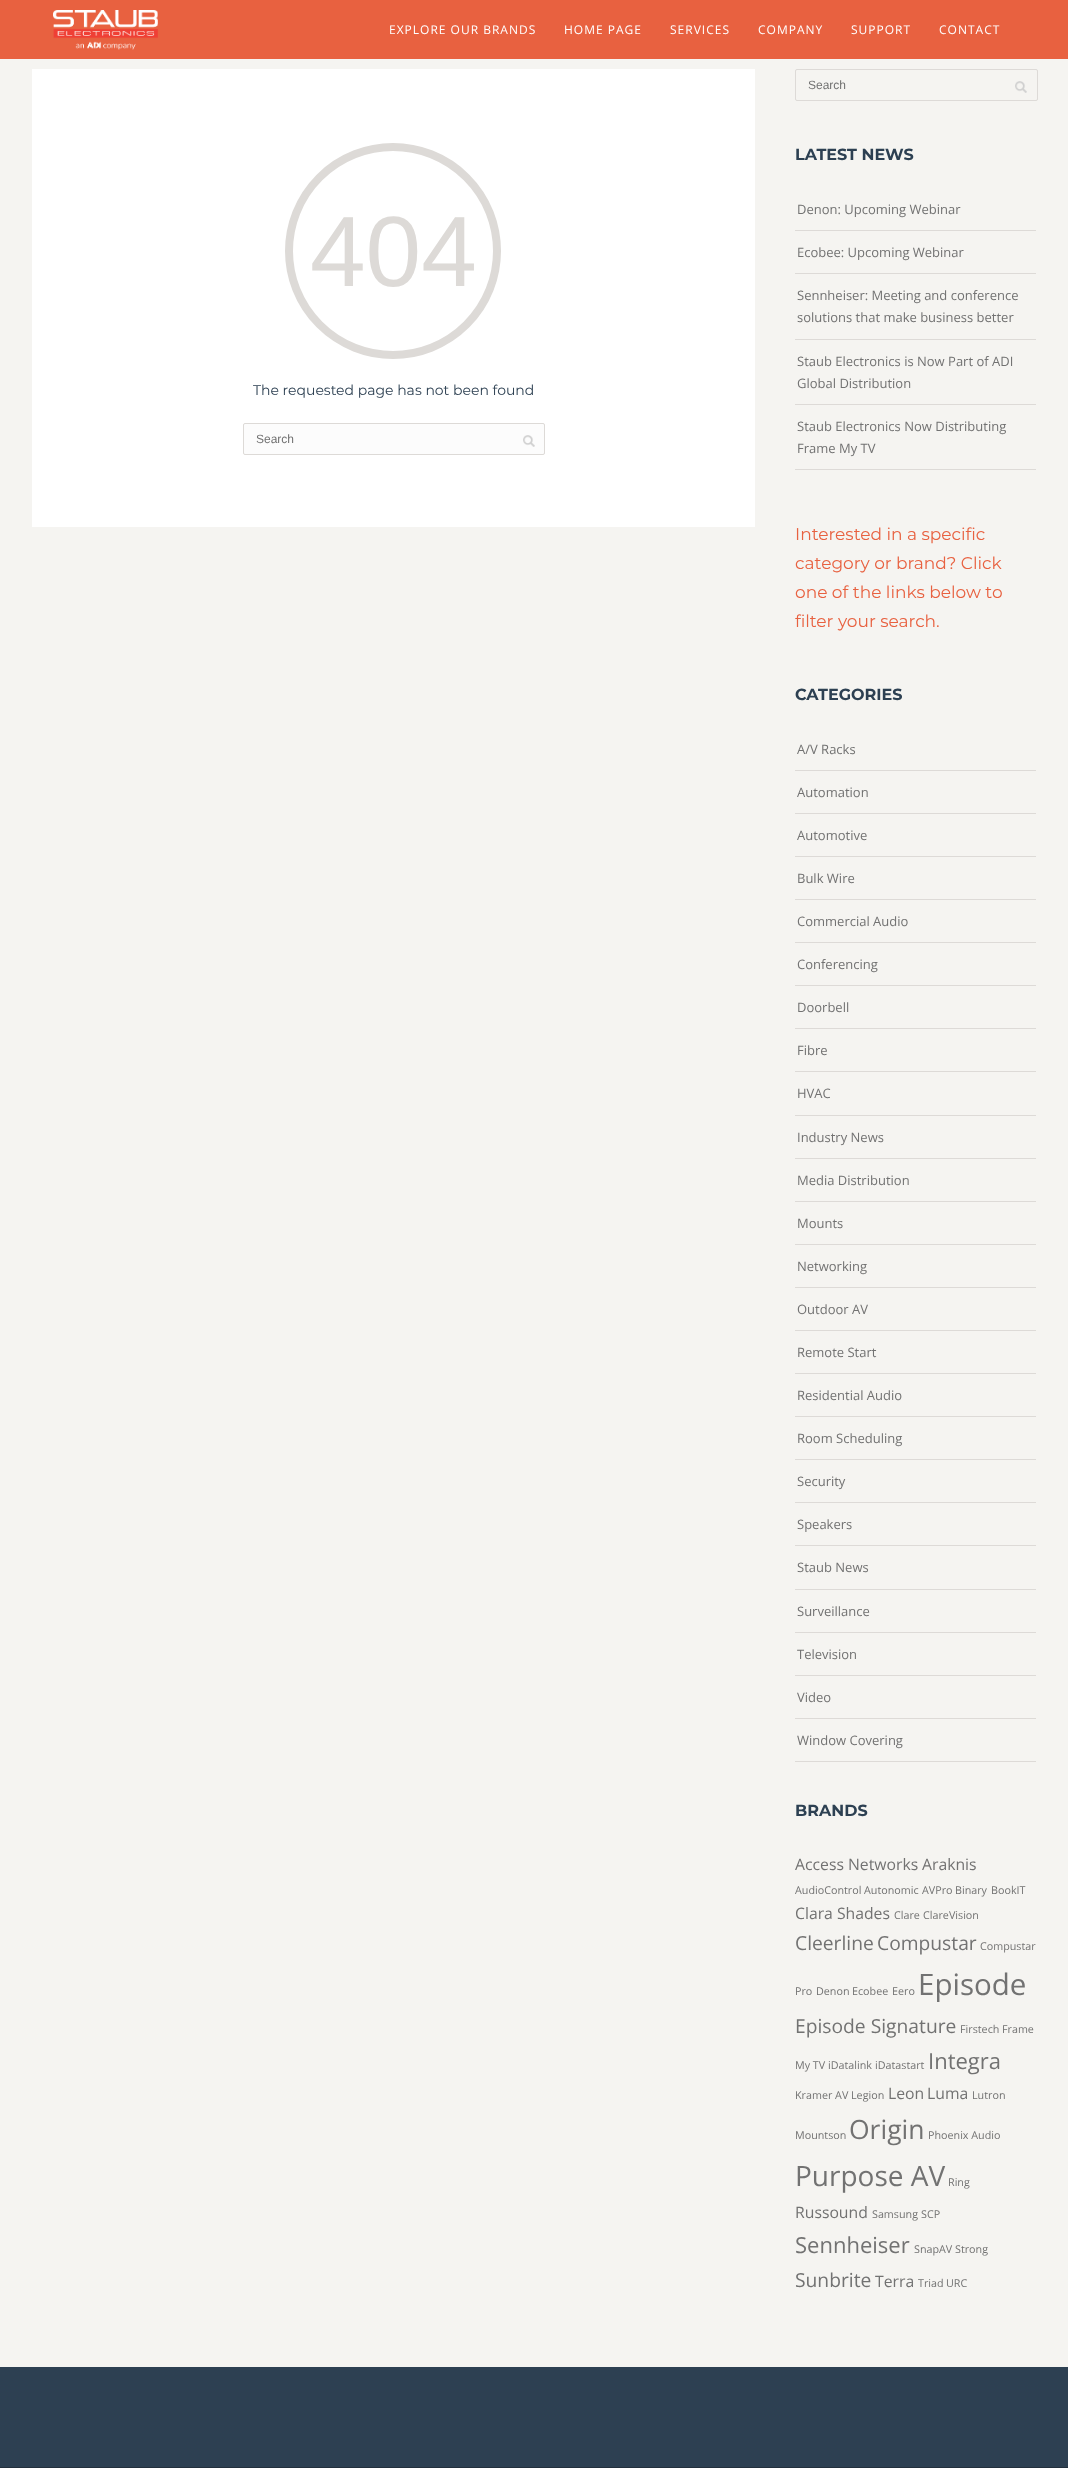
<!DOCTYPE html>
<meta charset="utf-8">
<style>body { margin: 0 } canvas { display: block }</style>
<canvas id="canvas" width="1068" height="2468"></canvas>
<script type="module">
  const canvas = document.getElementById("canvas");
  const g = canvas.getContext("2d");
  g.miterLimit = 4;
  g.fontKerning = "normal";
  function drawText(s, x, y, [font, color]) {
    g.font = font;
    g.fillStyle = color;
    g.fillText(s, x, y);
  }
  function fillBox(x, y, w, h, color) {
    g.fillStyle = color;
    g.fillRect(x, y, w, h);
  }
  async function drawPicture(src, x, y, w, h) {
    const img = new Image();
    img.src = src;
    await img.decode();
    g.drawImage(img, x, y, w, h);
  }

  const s1 = ["12px Open Sans", "#FFFFFF"];
  const s2 = ["100px Liberation Sans", "#DDDAD7"];
  const s3 = ["14px Montserrat", "#2D4052"];
  const s4 = ["12px Liberation Sans", "#727272"];
  const s5 = ["bold 16px Montserrat", "#2D4052"];
  const s6 = ["13px Open Sans", "#727272"];
  const s7 = ["17px Montserrat", "#E86140"];
  const s8 = ["15.75px Open Sans", "#727272"];
  const s9 = ["10.75px Open Sans", "#727272"];
  const s10 = ["19.25px Open Sans", "#727272"];
  const s11 = ["29.5px Open Sans", "#727272"];
  const s12 = ["22px Open Sans", "#727272"];
  const s13 = ["26.5px Open Sans", "#727272"];
  const s14 = ["28px Open Sans", "#727272"];

  fillBox(0, 0, 1068, 2468, "#F5F4F1");
  fillBox(0, 0, 1068, 59, "#E86140");
  await drawPicture("pic1.png", 53, 10, 105, 40);
  g.letterSpacing = "1px";
  drawText("EXPLORE OUR BRANDS", 389, 34, s1);
  drawText("HOME PAGE", 564, 34, s1);
  drawText("SERVICES", 670, 34, s1);
  drawText("COMPANY", 758, 34, s1);
  drawText("SUPPORT", 851, 34, s1);
  drawText("CONTACT", 939, 34, s1);
  fillBox(32, 69, 723, 458, "#FFFFFF");
  g.beginPath();
  g.arc(393, 251, 104, 0, Math.PI * 2);
  g.strokeStyle = "#DDDAD7";
  g.lineWidth = 8;
  g.stroke();
  g.letterSpacing = "0px";
  drawText("404", 310, 286, s2);
  drawText("The requested page has not been found", 253, 395, s3);
  g.fillStyle = "#FCFCFC";
  g.beginPath();
  g.roundRect(243.5, 423.5, 301, 31, 1.5);
  g.fill();
  g.lineWidth = 1;
  g.stroke();
  drawText("Search", 256, 443, s4);
  await drawPicture("pic2.png", 523, 435, 12, 12);
  g.beginPath();
  g.roundRect(795.5, 69.5, 242, 31, 1.5);
  g.stroke();
  drawText("Search", 808, 89, s4);
  await drawPicture("pic3.png", 1015, 81, 12, 12);
  drawText("LATEST NEWS", 795, 160, s5);
  fillBox(795, 230, 241, 1, "#DDDAD7");
  drawText("Denon: Upcoming Webinar", 797, 214, s6);
  fillBox(795, 273, 241, 1, "#DDDAD7");
  drawText("Ecobee: Upcoming Webinar", 797, 257, s6);
  fillBox(795, 339, 241, 1, "#DDDAD7");
  drawText("Sennheiser: Meeting and conference", 797, 300, s6);
  drawText("solutions that make business better", 797, 322, s6);
  fillBox(795, 404, 241, 1, "#DDDAD7");
  drawText("Staub Electronics is Now Part of ADI", 797, 366, s6);
  drawText("Global Distribution", 797, 388, s6);
  fillBox(795, 469, 241, 1, "#DDDAD7");
  drawText("Staub Electronics Now Distributing", 797, 431, s6);
  drawText("Frame My TV", 797, 453, s6);
  drawText("Interested in a specific", 795, 540, s7);
  drawText("category or brand? Click", 795, 569, s7);
  drawText("one of the links below to", 795, 598, s7);
  drawText("filter your search.", 795, 627, s7);
  drawText("CATEGORIES", 795, 700, s5);
  fillBox(795, 770, 241, 1, "#DDDAD7");
  drawText("A/V Racks", 797, 754, s6);
  fillBox(795, 813, 241, 1, "#DDDAD7");
  drawText("Automation", 797, 797, s6);
  fillBox(795, 856, 241, 1, "#DDDAD7");
  drawText("Automotive", 797, 840, s6);
  fillBox(795, 899, 241, 1, "#DDDAD7");
  drawText("Bulk Wire", 797, 883, s6);
  fillBox(795, 942, 241, 1, "#DDDAD7");
  drawText("Commercial Audio", 797, 926, s6);
  fillBox(795, 985, 241, 1, "#DDDAD7");
  drawText("Conferencing", 797, 969, s6);
  fillBox(795, 1028, 241, 1, "#DDDAD7");
  drawText("Doorbell", 797, 1012, s6);
  fillBox(795, 1071, 241, 1, "#DDDAD7");
  drawText("Fibre", 797, 1055, s6);
  fillBox(795, 1115, 241, 1, "#DDDAD7");
  drawText("HVAC", 797, 1098, s6);
  fillBox(795, 1158, 241, 1, "#DDDAD7");
  drawText("Industry News", 797, 1142, s6);
  fillBox(795, 1201, 241, 1, "#DDDAD7");
  drawText("Media Distribution", 797, 1185, s6);
  fillBox(795, 1244, 241, 1, "#DDDAD7");
  drawText("Mounts", 797, 1228, s6);
  fillBox(795, 1287, 241, 1, "#DDDAD7");
  drawText("Networking", 797, 1271, s6);
  fillBox(795, 1330, 241, 1, "#DDDAD7");
  drawText("Outdoor AV", 797, 1314, s6);
  fillBox(795, 1373, 241, 1, "#DDDAD7");
  drawText("Remote Start", 797, 1357, s6);
  fillBox(795, 1416, 241, 1, "#DDDAD7");
  drawText("Residential Audio", 797, 1400, s6);
  fillBox(795, 1459, 241, 1, "#DDDAD7");
  drawText("Room Scheduling", 797, 1443, s6);
  fillBox(795, 1502, 241, 1, "#DDDAD7");
  drawText("Security", 797, 1486, s6);
  fillBox(795, 1545, 241, 1, "#DDDAD7");
  drawText("Speakers", 797, 1529, s6);
  fillBox(795, 1589, 241, 1, "#DDDAD7");
  drawText("Staub News", 797, 1572, s6);
  fillBox(795, 1632, 241, 1, "#DDDAD7");
  drawText("Surveillance", 797, 1616, s6);
  fillBox(795, 1675, 241, 1, "#DDDAD7");
  drawText("Television", 797, 1659, s6);
  fillBox(795, 1718, 241, 1, "#DDDAD7");
  drawText("Video", 797, 1702, s6);
  fillBox(795, 1761, 241, 1, "#DDDAD7");
  drawText("Window Covering", 797, 1745, s6);
  drawText("BRANDS", 795, 1816, s5);
  drawText("Access Networks", 795, 1870, s8);
  drawText("Araknis", 922, 1870, s8);
  drawText("AudioControl", 795, 1894, s9);
  drawText("Autonomic", 864, 1894, s9);
  drawText("AVPro", 922, 1894, s9);
  drawText("Binary", 955, 1894, s9);
  drawText("BookIT", 991, 1894, s9);
  drawText("Clara Shades", 795, 1919, s8);
  drawText("Clare", 894, 1919, s9);
  drawText("ClareVision", 923, 1919, s9);
  drawText("Cleerline", 795, 1950, s10);
  drawText("Compustar", 877, 1950, s10);
  drawText("Compustar", 980, 1950, s9);
  drawText("Pro", 795, 1995, s9);
  drawText("Denon", 816, 1995, s9);
  drawText("Ecobee", 852, 1995, s9);
  drawText("Eero", 892, 1995, s9);
  drawText("Episode", 918, 1995, s11);
  drawText("Episode Signature", 795, 2033, s10);
  drawText("Firstech", 960, 2033, s9);
  drawText("Frame", 1002, 2033, s9);
  drawText("My TV", 795, 2069, s9);
  drawText("iDatalink", 828, 2069, s9);
  drawText("iDatastart", 875, 2069, s9);
  drawText("Integra", 928, 2069, s12);
  drawText("Kramer AV", 795, 2099, s9);
  drawText("Legion", 851, 2099, s9);
  drawText("Leon", 888, 2099, s8);
  drawText("Luma", 927, 2099, s8);
  drawText("Lutron", 972, 2099, s9);
  drawText("Mountson", 795, 2139, s9);
  drawText("Origin", 849, 2139, s13);
  drawText("Phoenix Audio", 928, 2139, s9);
  drawText("Purpose AV", 795, 2186, s14);
  drawText("Ring", 948, 2186, s9);
  drawText("Russound", 795, 2218, s8);
  drawText("Samsung", 872, 2218, s9);
  drawText("SCP", 921, 2218, s9);
  drawText("Sennheiser", 795, 2253, s12);
  drawText("SnapAV", 914, 2253, s9);
  drawText("Strong", 955, 2253, s9);
  drawText("Sunbrite", 795, 2287, s10);
  drawText("Terra", 875, 2287, s8);
  drawText("Triad", 918, 2287, s9);
  drawText("URC", 946, 2287, s9);
  fillBox(0, 2367, 1068, 100, "#2D4052");
  fillBox(0, 2467, 1068, 1, "#22303D");
</script>
